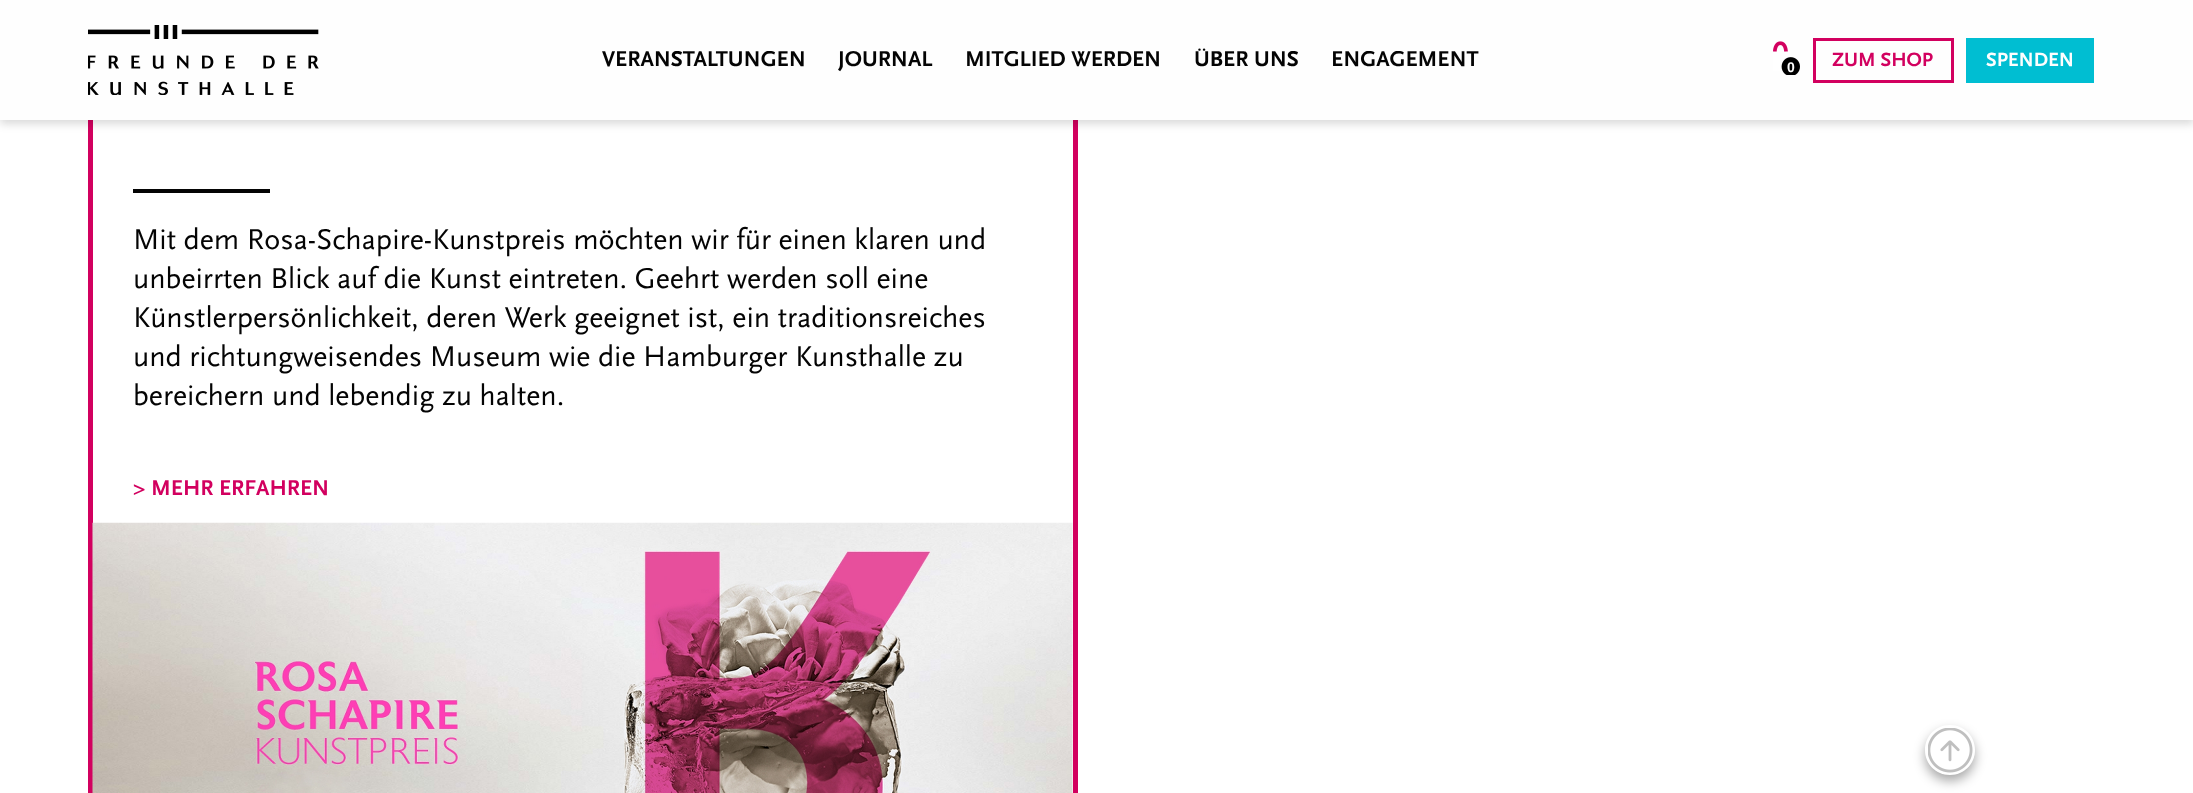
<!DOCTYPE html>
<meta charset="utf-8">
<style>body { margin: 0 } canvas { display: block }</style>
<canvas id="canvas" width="2193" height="793"></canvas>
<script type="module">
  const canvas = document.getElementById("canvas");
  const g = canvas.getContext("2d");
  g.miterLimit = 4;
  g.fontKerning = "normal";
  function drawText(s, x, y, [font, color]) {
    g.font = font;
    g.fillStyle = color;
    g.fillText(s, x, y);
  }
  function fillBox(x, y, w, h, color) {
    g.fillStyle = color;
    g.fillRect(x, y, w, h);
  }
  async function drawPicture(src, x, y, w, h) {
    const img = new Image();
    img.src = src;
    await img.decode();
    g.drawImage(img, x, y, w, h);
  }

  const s1 = ["bold 22.5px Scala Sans", "#040404"];
  const s2 = ["bold 14px Liberation Sans", "#FEFEFE"];
  const s3 = ["bold 20px Scala Sans", "#D2005F"];
  const s4 = ["bold 20px Scala Sans", "#FEFEFE"];
  const s5 = ["500 30px ScalaSans", "#040404"];
  const s6 = ["bold 22.5px Scala Sans", "#D2005F"];

  fillBox(0, 0, 2193, 793, "#FFFFFF");
  g.strokeStyle = "#D2005F";
  g.lineWidth = 5;
  g.strokeRect(90.5, -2.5, 985, 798);
  g.fillStyle = "rgba(0, 0, 0, 0.15)";
  g.filter = "blur(4px)";
  g.beginPath();
  g.rect(0, 4, 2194, 120);
  g.fill();
  g.filter = "none";
  fillBox(0, 0, 2193, 120, "#FEFEFE");
  await drawPicture("pic1.png", 88, 25, 231, 70);
  drawText("VERANSTALTUNGEN", 602, 66, s1);
  drawText("JOURNAL", 838, 66, s1);
  drawText("MITGLIED WERDEN", 965, 66, s1);
  drawText("ÜBER UNS", 1194, 66, s1);
  drawText("ENGAGEMENT", 1331, 66, s1);
  await drawPicture("pic2.png", 1773, 41, 27, 34);
  drawText("0", 1787, 72, s2);
  g.lineWidth = 3;
  g.strokeRect(1814.5, 39.5, 138, 42);
  drawText("ZUM SHOP", 1832, 66, s3);
  fillBox(1966, 38, 128, 45, "#00BED2");
  drawText("SPENDEN", 1986, 66, s4);
  fillBox(133, 189, 137, 4, "#040404");
  drawText("Mit dem Rosa-Schapire-Kunstpreis möchten wir für einen klaren und", 133, 249, s5);
  drawText("unbeirrten Blick auf die Kunst eintreten. Geehrt werden soll eine", 133, 288, s5);
  drawText("Künstlerpersönlichkeit, deren Werk geeignet ist, ein traditionsreiches", 133, 327, s5);
  drawText("und richtungweisendes Museum wie die Hamburger Kunsthalle zu", 133, 366, s5);
  drawText("bereichern und lebendig zu halten.", 133, 405, s5);
  drawText("> MEHR ERFAHREN", 133, 495, s6);
  await drawPicture("pic3.png", 92, 522, 981, 271);
  g.save();
  g.beginPath();
  g.moveTo(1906, 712);
  g.lineTo(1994, 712);
  g.lineTo(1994, 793);
  g.lineTo(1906, 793);
  g.closePath();
  g.moveTo(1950, 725);
  g.bezierCurveTo(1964, 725, 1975, 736, 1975, 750);
  g.bezierCurveTo(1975, 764, 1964, 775, 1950, 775);
  g.bezierCurveTo(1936, 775, 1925, 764, 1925, 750);
  g.bezierCurveTo(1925, 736, 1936, 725, 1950, 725);
  g.closePath();
  g.clip("evenodd");
  g.fillStyle = "rgba(0, 0, 0, 0.35)";
  g.filter = "blur(6px)";
  g.beginPath();
  g.roundRect(1925, 731, 50, 50, 25);
  g.fill();
  g.filter = "none";
  g.restore();
  g.fillStyle = "rgba(255, 255, 255, 0.3)";
  g.beginPath();
  g.arc(1950, 750, 25, 0, Math.PI * 2);
  g.fill();
  await drawPicture("pic4.png", 1928, 728, 45, 45);
</script>
